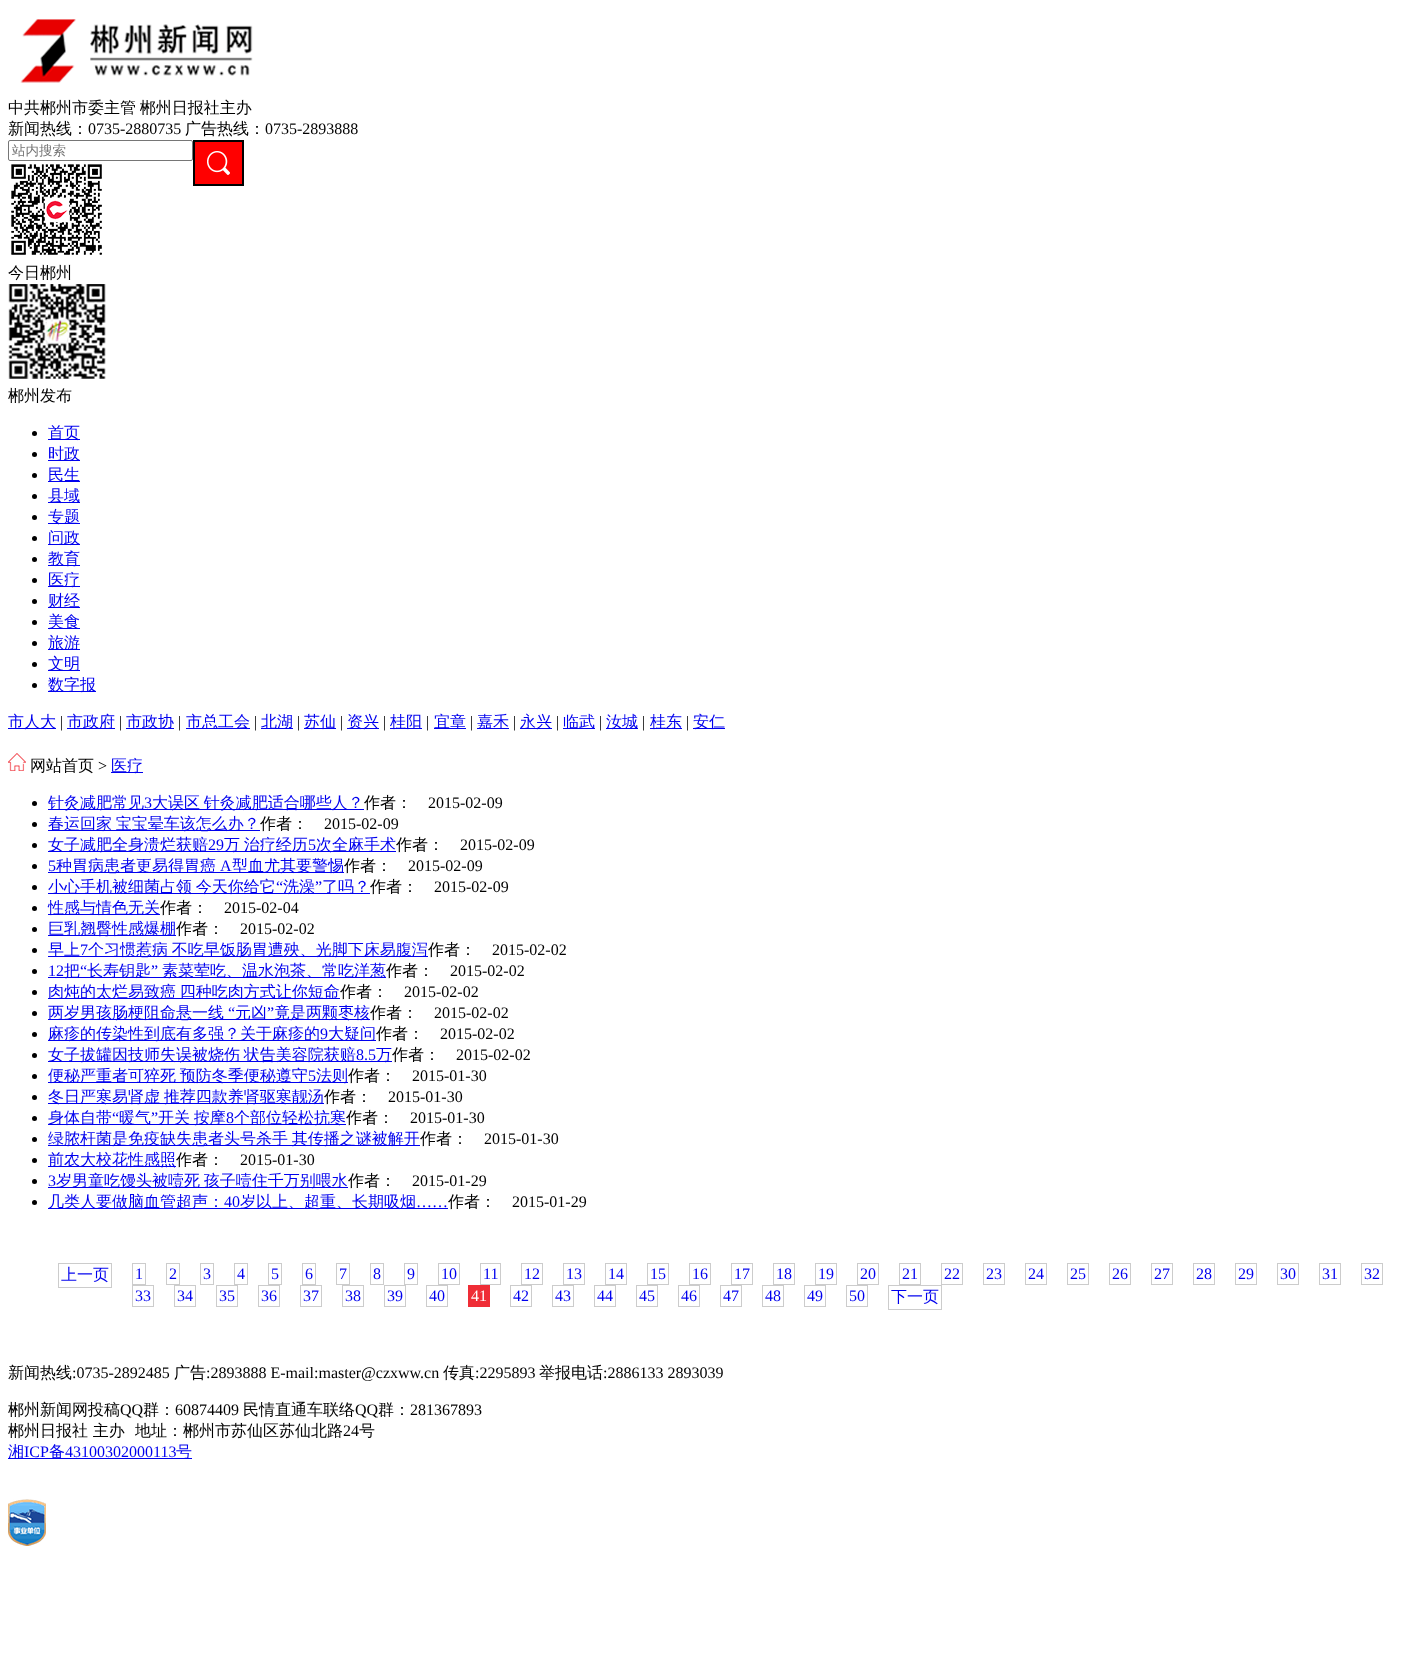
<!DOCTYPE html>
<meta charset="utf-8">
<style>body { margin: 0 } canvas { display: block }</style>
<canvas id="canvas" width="1421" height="1653"></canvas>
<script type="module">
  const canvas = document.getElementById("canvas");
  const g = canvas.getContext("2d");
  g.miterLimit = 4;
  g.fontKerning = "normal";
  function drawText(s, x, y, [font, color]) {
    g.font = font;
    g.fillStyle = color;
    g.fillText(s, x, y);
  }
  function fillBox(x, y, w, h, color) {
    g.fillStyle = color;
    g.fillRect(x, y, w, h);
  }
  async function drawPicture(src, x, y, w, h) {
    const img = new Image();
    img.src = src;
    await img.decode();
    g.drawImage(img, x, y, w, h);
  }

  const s1 = ["500 16px WenQuanYi Zen Hei", "#000000"];
  const s2 = ["16px Liberation Serif", "#000000"];
  const s3 = ["500 13.5px WenQuanYi Zen Hei", "#757575"];
  const s4 = ["500 16px WenQuanYi Zen Hei", "#0000EE"];
  const s5 = ["16px Liberation Serif", "#0000EE"];
  const s6 = ["16px Liberation Serif", "#FFFFFF"];

  fillBox(0, 0, 1421, 1653, "#FFFFFF");
  await drawPicture("pic1.png", 20, 19, 233, 64);
  g.wordSpacing = "-1px";
  drawText("中共郴州市委主管 郴州日报社主办", 8, 113, s1);
  g.wordSpacing = "0px";
  drawText("新闻热线：", 8, 134, s1);
  drawText("0735-2880735", 88, 134, s2);
  drawText("广告热线：", 185, 134, s1);
  drawText("0735-2893888", 265, 134, s2);
  g.beginPath();
  g.roundRect(8.5, 140.5, 184, 20, 1.5);
  g.strokeStyle = "#767676";
  g.stroke();
  drawText("站内搜索", 12, 155, s3);
  fillBox(195, 142, 47, 42, "#FF0000");
  await drawPicture("pic2.png", 207, 151, 23, 24);
  g.strokeStyle = "#000000";
  g.lineWidth = 2;
  g.strokeRect(194, 141, 49, 44);
  await drawPicture("pic3.png", 11, 164, 91, 91);
  drawText("今日郴州", 8, 278, s1);
  await drawPicture("pic4.png", 8, 284, 98, 95);
  drawText("郴州发布", 8, 401, s1);
  g.beginPath();
  g.arc(34.5, 433.5, 2.5, 0, Math.PI * 2);
  g.fill();
  fillBox(48, 439, 32, 1, "#0000EE");
  drawText("首页", 48, 438, s4);
  g.fillStyle = "#000000";
  g.beginPath();
  g.arc(34.5, 454.5, 2.5, 0, Math.PI * 2);
  g.fill();
  fillBox(48, 460, 32, 1, "#0000EE");
  drawText("时政", 48, 459, s4);
  g.fillStyle = "#000000";
  g.beginPath();
  g.arc(34.5, 475.5, 2.5, 0, Math.PI * 2);
  g.fill();
  fillBox(48, 481, 32, 1, "#0000EE");
  drawText("民生", 48, 480, s4);
  g.fillStyle = "#000000";
  g.beginPath();
  g.arc(34.5, 496.5, 2.5, 0, Math.PI * 2);
  g.fill();
  fillBox(48, 502, 32, 1, "#0000EE");
  drawText("县域", 48, 501, s4);
  g.fillStyle = "#000000";
  g.beginPath();
  g.arc(34.5, 517.5, 2.5, 0, Math.PI * 2);
  g.fill();
  fillBox(48, 523, 32, 1, "#0000EE");
  drawText("专题", 48, 522, s4);
  g.fillStyle = "#000000";
  g.beginPath();
  g.arc(34.5, 538.5, 2.5, 0, Math.PI * 2);
  g.fill();
  fillBox(48, 544, 32, 1, "#0000EE");
  drawText("问政", 48, 543, s4);
  g.fillStyle = "#000000";
  g.beginPath();
  g.arc(34.5, 559.5, 2.5, 0, Math.PI * 2);
  g.fill();
  fillBox(48, 565, 32, 1, "#0000EE");
  drawText("教育", 48, 564, s4);
  g.fillStyle = "#000000";
  g.beginPath();
  g.arc(34.5, 580.5, 2.5, 0, Math.PI * 2);
  g.fill();
  fillBox(48, 586, 32, 1, "#0000EE");
  drawText("医疗", 48, 585, s4);
  g.fillStyle = "#000000";
  g.beginPath();
  g.arc(34.5, 601.5, 2.5, 0, Math.PI * 2);
  g.fill();
  fillBox(48, 607, 32, 1, "#0000EE");
  drawText("财经", 48, 606, s4);
  g.fillStyle = "#000000";
  g.beginPath();
  g.arc(34.5, 622.5, 2.5, 0, Math.PI * 2);
  g.fill();
  fillBox(48, 628, 32, 1, "#0000EE");
  drawText("美食", 48, 627, s4);
  g.fillStyle = "#000000";
  g.beginPath();
  g.arc(34.5, 643.5, 2.5, 0, Math.PI * 2);
  g.fill();
  fillBox(48, 649, 32, 1, "#0000EE");
  drawText("旅游", 48, 648, s4);
  g.fillStyle = "#000000";
  g.beginPath();
  g.arc(34.5, 664.5, 2.5, 0, Math.PI * 2);
  g.fill();
  fillBox(48, 670, 32, 1, "#0000EE");
  drawText("文明", 48, 669, s4);
  g.fillStyle = "#000000";
  g.beginPath();
  g.arc(34.5, 685.5, 2.5, 0, Math.PI * 2);
  g.fill();
  fillBox(48, 691, 48, 1, "#0000EE");
  drawText("数字报", 48, 690, s4);
  fillBox(8, 728, 48, 1, "#0000EE");
  drawText("市人大", 8, 727, s4);
  drawText("|", 60, 727, s2);
  fillBox(67, 728, 48, 1, "#0000EE");
  drawText("市政府", 67, 727, s4);
  drawText("|", 119, 727, s2);
  fillBox(126, 728, 48, 1, "#0000EE");
  drawText("市政协", 126, 727, s4);
  drawText("|", 178, 727, s2);
  fillBox(186, 728, 64, 1, "#0000EE");
  drawText("市总工会", 186, 727, s4);
  drawText("|", 254, 727, s2);
  fillBox(261, 728, 32, 1, "#0000EE");
  drawText("北湖", 261, 727, s4);
  drawText("|", 297, 727, s2);
  fillBox(304, 728, 32, 1, "#0000EE");
  drawText("苏仙", 304, 727, s4);
  drawText("|", 340, 727, s2);
  fillBox(347, 728, 32, 1, "#0000EE");
  drawText("资兴", 347, 727, s4);
  drawText("|", 383, 727, s2);
  fillBox(390, 728, 32, 1, "#0000EE");
  drawText("桂阳", 390, 727, s4);
  drawText("|", 426, 727, s2);
  fillBox(434, 728, 32, 1, "#0000EE");
  drawText("宜章", 434, 727, s4);
  drawText("|", 470, 727, s2);
  fillBox(477, 728, 32, 1, "#0000EE");
  drawText("嘉禾", 477, 727, s4);
  drawText("|", 513, 727, s2);
  fillBox(520, 728, 32, 1, "#0000EE");
  drawText("永兴", 520, 727, s4);
  drawText("|", 556, 727, s2);
  fillBox(563, 728, 32, 1, "#0000EE");
  drawText("临武", 563, 727, s4);
  drawText("|", 599, 727, s2);
  fillBox(606, 728, 32, 1, "#0000EE");
  drawText("汝城", 606, 727, s4);
  drawText("|", 642, 727, s2);
  fillBox(650, 728, 32, 1, "#0000EE");
  drawText("桂东", 650, 727, s4);
  drawText("|", 686, 727, s2);
  fillBox(693, 728, 32, 1, "#0000EE");
  drawText("安仁", 693, 727, s4);
  await drawPicture("pic5.png", 8, 753, 18, 18);
  drawText("网站首页", 30, 771, s1);
  drawText(">", 98, 771, s2);
  fillBox(111, 772, 32, 1, "#0000EE");
  drawText("医疗", 111, 771, s4);
  g.fillStyle = "#000000";
  g.beginPath();
  g.arc(34.5, 803.5, 2.5, 0, Math.PI * 2);
  g.fill();
  fillBox(48, 809, 316, 1, "#0000EE");
  drawText("针灸减肥常见", 48, 808, s4);
  drawText("3", 144, 808, s5);
  g.wordSpacing = "-1px";
  drawText("大误区 针灸减肥适合哪些人？", 152, 808, s4);
  g.wordSpacing = "0px";
  drawText("作者：", 364, 808, s1);
  drawText("2015-02-09", 428, 808, s2);
  g.beginPath();
  g.arc(34.5, 824.5, 2.5, 0, Math.PI * 2);
  g.fill();
  fillBox(48, 830, 212, 1, "#0000EE");
  g.wordSpacing = "-1px";
  drawText("春运回家 宝宝晕车该怎么办？", 48, 829, s4);
  g.wordSpacing = "0px";
  drawText("作者：", 260, 829, s1);
  drawText("2015-02-09", 324, 829, s2);
  g.beginPath();
  g.arc(34.5, 845.5, 2.5, 0, Math.PI * 2);
  g.fill();
  fillBox(48, 851, 348, 1, "#0000EE");
  drawText("女子减肥全身溃烂获赔", 48, 850, s4);
  drawText("29", 208, 850, s5);
  g.wordSpacing = "-1px";
  drawText("万 治疗经历", 224, 850, s4);
  g.wordSpacing = "0px";
  drawText("5", 308, 850, s5);
  drawText("次全麻手术", 316, 850, s4);
  drawText("作者：", 396, 850, s1);
  drawText("2015-02-09", 460, 850, s2);
  g.beginPath();
  g.arc(34.5, 866.5, 2.5, 0, Math.PI * 2);
  g.fill();
  drawText("5", 48, 871, s5);
  fillBox(48, 872, 296, 1, "#0000EE");
  drawText("种胃病患者更易得胃癌", 56, 871, s4);
  drawText("A", 220, 871, s5);
  drawText("型血尤其要警惕", 232, 871, s4);
  drawText("作者：", 344, 871, s1);
  drawText("2015-02-09", 408, 871, s2);
  g.beginPath();
  g.arc(34.5, 887.5, 2.5, 0, Math.PI * 2);
  g.fill();
  fillBox(48, 893, 322, 1, "#0000EE");
  g.wordSpacing = "-1px";
  drawText("小心手机被细菌占领 今天你给它", 48, 892, s4);
  g.wordSpacing = "0px";
  drawText("“", 276, 892, s5);
  drawText("洗澡", 283, 892, s4);
  drawText("”", 315, 892, s5);
  drawText("了吗？", 322, 892, s4);
  drawText("作者：", 370, 892, s1);
  drawText("2015-02-09", 434, 892, s2);
  g.beginPath();
  g.arc(34.5, 908.5, 2.5, 0, Math.PI * 2);
  g.fill();
  fillBox(48, 914, 112, 1, "#0000EE");
  drawText("性感与情色无关", 48, 913, s4);
  drawText("作者：", 160, 913, s1);
  drawText("2015-02-04", 224, 913, s2);
  g.beginPath();
  g.arc(34.5, 929.5, 2.5, 0, Math.PI * 2);
  g.fill();
  fillBox(48, 935, 128, 1, "#0000EE");
  drawText("巨乳翘臀性感爆棚", 48, 934, s4);
  drawText("作者：", 176, 934, s1);
  drawText("2015-02-02", 240, 934, s2);
  g.beginPath();
  g.arc(34.5, 950.5, 2.5, 0, Math.PI * 2);
  g.fill();
  fillBox(48, 956, 380, 1, "#0000EE");
  drawText("早上", 48, 955, s4);
  drawText("7", 80, 955, s5);
  g.wordSpacing = "-1px";
  drawText("个习惯惹病 不吃早饭肠胃遭殃、光脚下床易腹泻", 88, 955, s4);
  g.wordSpacing = "0px";
  drawText("作者：", 428, 955, s1);
  drawText("2015-02-02", 492, 955, s2);
  g.beginPath();
  g.arc(34.5, 971.5, 2.5, 0, Math.PI * 2);
  g.fill();
  drawText("12", 48, 976, s5);
  fillBox(48, 977, 338, 1, "#0000EE");
  drawText("把", 64, 976, s4);
  drawText("“", 80, 976, s5);
  drawText("长寿钥匙", 87, 976, s4);
  drawText("”", 151, 976, s5);
  drawText("素菜荤吃、温水泡茶、常吃洋葱", 162, 976, s4);
  drawText("作者：", 386, 976, s1);
  drawText("2015-02-02", 450, 976, s2);
  g.beginPath();
  g.arc(34.5, 992.5, 2.5, 0, Math.PI * 2);
  g.fill();
  fillBox(48, 998, 292, 1, "#0000EE");
  g.wordSpacing = "-1px";
  drawText("肉炖的太烂易致癌 四种吃肉方式让你短命", 48, 997, s4);
  g.wordSpacing = "0px";
  drawText("作者：", 340, 997, s1);
  drawText("2015-02-02", 404, 997, s2);
  g.beginPath();
  g.arc(34.5, 1013.5, 2.5, 0, Math.PI * 2);
  g.fill();
  fillBox(48, 1019, 322, 1, "#0000EE");
  drawText("两岁男孩肠梗阻命悬一线", 48, 1018, s4);
  drawText("“", 228, 1018, s5);
  drawText("元凶", 235, 1018, s4);
  drawText("”", 267, 1018, s5);
  drawText("竟是两颗枣核", 274, 1018, s4);
  drawText("作者：", 370, 1018, s1);
  drawText("2015-02-02", 434, 1018, s2);
  g.beginPath();
  g.arc(34.5, 1034.5, 2.5, 0, Math.PI * 2);
  g.fill();
  fillBox(48, 1040, 328, 1, "#0000EE");
  drawText("麻疹的传染性到底有多强？关于麻疹的", 48, 1039, s4);
  drawText("9", 320, 1039, s5);
  drawText("大疑问", 328, 1039, s4);
  drawText("作者：", 376, 1039, s1);
  drawText("2015-02-02", 440, 1039, s2);
  g.beginPath();
  g.arc(34.5, 1055.5, 2.5, 0, Math.PI * 2);
  g.fill();
  fillBox(48, 1061, 344, 1, "#0000EE");
  g.wordSpacing = "-1px";
  drawText("女子拔罐因技师失误被烧伤 状告美容院获赔", 48, 1060, s4);
  g.wordSpacing = "0px";
  drawText("8.5", 356, 1060, s5);
  drawText("万", 376, 1060, s4);
  drawText("作者：", 392, 1060, s1);
  drawText("2015-02-02", 456, 1060, s2);
  g.beginPath();
  g.arc(34.5, 1076.5, 2.5, 0, Math.PI * 2);
  g.fill();
  fillBox(48, 1082, 300, 1, "#0000EE");
  g.wordSpacing = "-1px";
  drawText("便秘严重者可猝死 预防冬季便秘遵守", 48, 1081, s4);
  g.wordSpacing = "0px";
  drawText("5", 308, 1081, s5);
  drawText("法则", 316, 1081, s4);
  drawText("作者：", 348, 1081, s1);
  drawText("2015-01-30", 412, 1081, s2);
  g.beginPath();
  g.arc(34.5, 1097.5, 2.5, 0, Math.PI * 2);
  g.fill();
  fillBox(48, 1103, 276, 1, "#0000EE");
  g.wordSpacing = "-1px";
  drawText("冬日严寒易肾虚 推荐四款养肾驱寒靓汤", 48, 1102, s4);
  g.wordSpacing = "0px";
  drawText("作者：", 324, 1102, s1);
  drawText("2015-01-30", 388, 1102, s2);
  g.beginPath();
  g.arc(34.5, 1118.5, 2.5, 0, Math.PI * 2);
  g.fill();
  fillBox(48, 1124, 298, 1, "#0000EE");
  drawText("身体自带", 48, 1123, s4);
  drawText("“", 112, 1123, s5);
  drawText("暖气", 119, 1123, s4);
  drawText("”", 151, 1123, s5);
  g.wordSpacing = "-1px";
  drawText("开关 按摩", 158, 1123, s4);
  g.wordSpacing = "0px";
  drawText("8", 226, 1123, s5);
  drawText("个部位轻松抗寒", 234, 1123, s4);
  drawText("作者：", 346, 1123, s1);
  drawText("2015-01-30", 410, 1123, s2);
  g.beginPath();
  g.arc(34.5, 1139.5, 2.5, 0, Math.PI * 2);
  g.fill();
  fillBox(48, 1145, 372, 1, "#0000EE");
  g.wordSpacing = "-1px";
  drawText("绿脓杆菌是免疫缺失患者头号杀手 其传播之谜被解开", 48, 1144, s4);
  g.wordSpacing = "0px";
  drawText("作者：", 420, 1144, s1);
  drawText("2015-01-30", 484, 1144, s2);
  g.beginPath();
  g.arc(34.5, 1160.5, 2.5, 0, Math.PI * 2);
  g.fill();
  fillBox(48, 1166, 128, 1, "#0000EE");
  drawText("前农大校花性感照", 48, 1165, s4);
  drawText("作者：", 176, 1165, s1);
  drawText("2015-01-30", 240, 1165, s2);
  g.beginPath();
  g.arc(34.5, 1181.5, 2.5, 0, Math.PI * 2);
  g.fill();
  drawText("3", 48, 1186, s5);
  fillBox(48, 1187, 300, 1, "#0000EE");
  g.wordSpacing = "-1px";
  drawText("岁男童吃馒头被噎死 孩子噎住千万别喂水", 56, 1186, s4);
  g.wordSpacing = "0px";
  drawText("作者：", 348, 1186, s1);
  drawText("2015-01-29", 412, 1186, s2);
  g.beginPath();
  g.arc(34.5, 1202.5, 2.5, 0, Math.PI * 2);
  g.fill();
  fillBox(48, 1208, 400, 1, "#0000EE");
  drawText("几类人要做脑血管超声：", 48, 1207, s4);
  drawText("40", 224, 1207, s5);
  drawText("岁以上、超重、长期吸烟", 240, 1207, s4);
  drawText("作者：", 448, 1207, s1);
  drawText("2015-01-29", 512, 1207, s2);
  drawText("……", 416, 1207, s5);
  g.strokeStyle = "#CCCCCC";
  g.lineWidth = 1;
  g.strokeRect(58.5, 1263.5, 53, 24);
  drawText("上一页", 61, 1280, s4);
  g.strokeRect(132.5, 1263.5, 13, 21);
  drawText("1", 135, 1279, s5);
  g.strokeRect(166.5, 1263.5, 13, 21);
  drawText("2", 169, 1279, s5);
  g.strokeRect(200.5, 1263.5, 13, 21);
  drawText("3", 203, 1279, s5);
  g.strokeRect(234.5, 1263.5, 13, 21);
  drawText("4", 237, 1279, s5);
  g.strokeRect(268.5, 1263.5, 13, 21);
  drawText("5", 271, 1279, s5);
  g.strokeRect(302.5, 1263.5, 13, 21);
  drawText("6", 305, 1279, s5);
  g.strokeRect(336.5, 1263.5, 13, 21);
  drawText("7", 339, 1279, s5);
  g.strokeRect(370.5, 1263.5, 13, 21);
  drawText("8", 373, 1279, s5);
  g.strokeRect(404.5, 1263.5, 13, 21);
  drawText("9", 407, 1279, s5);
  g.strokeRect(438.5, 1263.5, 21, 21);
  drawText("10", 441, 1279, s5);
  g.strokeRect(480.5, 1263.5, 20, 21);
  drawText("11", 483, 1279, s5);
  g.strokeRect(521.5, 1263.5, 21, 21);
  drawText("12", 524, 1279, s5);
  g.strokeRect(563.5, 1263.5, 21, 21);
  drawText("13", 566, 1279, s5);
  g.strokeRect(605.5, 1263.5, 21, 21);
  drawText("14", 608, 1279, s5);
  g.strokeRect(647.5, 1263.5, 21, 21);
  drawText("15", 650, 1279, s5);
  g.strokeRect(689.5, 1263.5, 21, 21);
  drawText("16", 692, 1279, s5);
  g.strokeRect(731.5, 1263.5, 21, 21);
  drawText("17", 734, 1279, s5);
  g.strokeRect(773.5, 1263.5, 21, 21);
  drawText("18", 776, 1279, s5);
  g.strokeRect(815.5, 1263.5, 21, 21);
  drawText("19", 818, 1279, s5);
  g.strokeRect(857.5, 1263.5, 21, 21);
  drawText("20", 860, 1279, s5);
  g.strokeRect(899.5, 1263.5, 21, 21);
  drawText("21", 902, 1279, s5);
  g.strokeRect(941.5, 1263.5, 21, 21);
  drawText("22", 944, 1279, s5);
  g.strokeRect(983.5, 1263.5, 21, 21);
  drawText("23", 986, 1279, s5);
  g.strokeRect(1025.5, 1263.5, 21, 21);
  drawText("24", 1028, 1279, s5);
  g.strokeRect(1067.5, 1263.5, 21, 21);
  drawText("25", 1070, 1279, s5);
  g.strokeRect(1109.5, 1263.5, 21, 21);
  drawText("26", 1112, 1279, s5);
  g.strokeRect(1151.5, 1263.5, 21, 21);
  drawText("27", 1154, 1279, s5);
  g.strokeRect(1193.5, 1263.5, 21, 21);
  drawText("28", 1196, 1279, s5);
  g.strokeRect(1235.5, 1263.5, 21, 21);
  drawText("29", 1238, 1279, s5);
  g.strokeRect(1277.5, 1263.5, 21, 21);
  drawText("30", 1280, 1279, s5);
  g.strokeRect(1319.5, 1263.5, 21, 21);
  drawText("31", 1322, 1279, s5);
  g.strokeRect(1361.5, 1263.5, 21, 21);
  drawText("32", 1364, 1279, s5);
  g.strokeRect(132.5, 1285.5, 21, 21);
  drawText("33", 135, 1301, s5);
  g.strokeRect(174.5, 1285.5, 21, 21);
  drawText("34", 177, 1301, s5);
  g.strokeRect(216.5, 1285.5, 21, 21);
  drawText("35", 219, 1301, s5);
  g.strokeRect(258.5, 1285.5, 21, 21);
  drawText("36", 261, 1301, s5);
  g.strokeRect(300.5, 1285.5, 21, 21);
  drawText("37", 303, 1301, s5);
  g.strokeRect(342.5, 1285.5, 21, 21);
  drawText("38", 345, 1301, s5);
  g.strokeRect(384.5, 1285.5, 21, 21);
  drawText("39", 387, 1301, s5);
  g.strokeRect(426.5, 1285.5, 21, 21);
  drawText("40", 429, 1301, s5);
  fillBox(468, 1285, 22, 22, "#EF2D36");
  drawText("41", 471, 1301, s6);
  g.strokeRect(510.5, 1285.5, 21, 21);
  drawText("42", 513, 1301, s5);
  g.strokeRect(552.5, 1285.5, 21, 21);
  drawText("43", 555, 1301, s5);
  g.strokeRect(594.5, 1285.5, 21, 21);
  drawText("44", 597, 1301, s5);
  g.strokeRect(636.5, 1285.5, 21, 21);
  drawText("45", 639, 1301, s5);
  g.strokeRect(678.5, 1285.5, 21, 21);
  drawText("46", 681, 1301, s5);
  g.strokeRect(720.5, 1285.5, 21, 21);
  drawText("47", 723, 1301, s5);
  g.strokeRect(762.5, 1285.5, 21, 21);
  drawText("48", 765, 1301, s5);
  g.strokeRect(804.5, 1285.5, 21, 21);
  drawText("49", 807, 1301, s5);
  g.strokeRect(846.5, 1285.5, 21, 21);
  drawText("50", 849, 1301, s5);
  g.strokeRect(888.5, 1285.5, 53, 24);
  drawText("下一页", 891, 1302, s4);
  drawText("新闻热线", 8, 1378, s1);
  drawText(":0735-2892485", 72, 1378, s2);
  drawText("广告", 174, 1378, s1);
  drawText(":2893888 E-mail:master@czxww.cn", 206, 1378, s2);
  drawText("传真", 443, 1378, s1);
  drawText(":2295893", 475, 1378, s2);
  drawText("举报电话", 539, 1378, s1);
  drawText(":2886133 2893039", 603, 1378, s2);
  drawText("郴州新闻网投稿", 8, 1415, s1);
  drawText("QQ", 120, 1415, s2);
  drawText("群：", 143, 1415, s1);
  drawText("60874409", 175, 1415, s2);
  drawText("民情直通车联络", 243, 1415, s1);
  drawText("QQ", 355, 1415, s2);
  drawText("群：", 378, 1415, s1);
  drawText("281367893", 410, 1415, s2);
  drawText("郴州日报社 主办", 8, 1436, s1);
  drawText("地址：郴州市苏仙区苏仙北路", 135, 1436, s1);
  drawText("24", 343, 1436, s2);
  drawText("号", 359, 1436, s1);
  fillBox(8, 1458, 184, 1, "#0000EE");
  drawText("湘", 8, 1457, s4);
  drawText("ICP", 24, 1457, s5);
  drawText("备", 49, 1457, s4);
  drawText("43100302000113", 65, 1457, s5);
  drawText("号", 176, 1457, s4);
  await drawPicture("pic6.png", 8, 1499, 38, 47);
</script>
